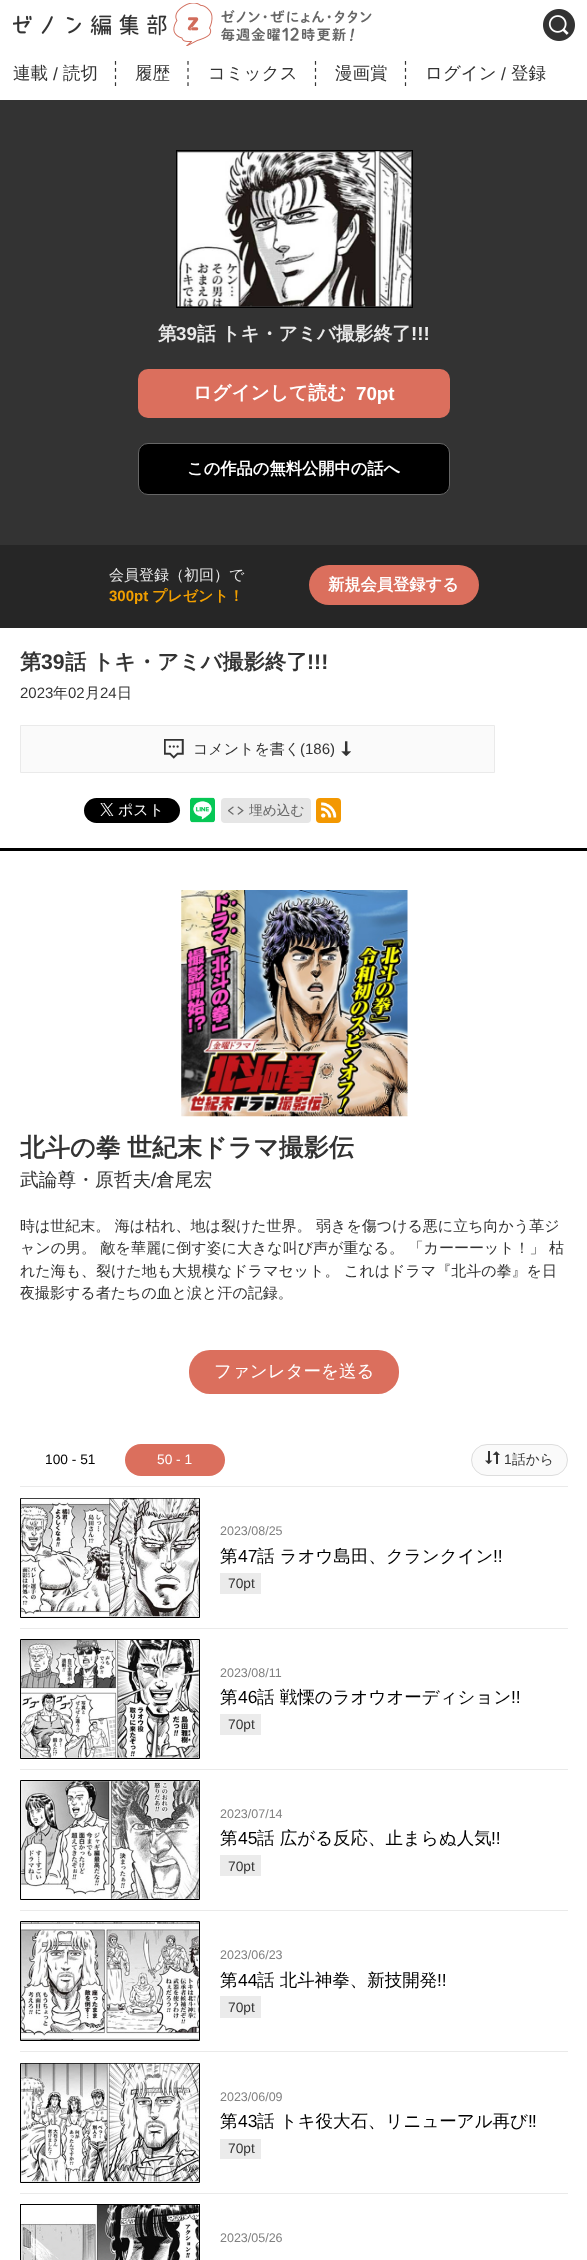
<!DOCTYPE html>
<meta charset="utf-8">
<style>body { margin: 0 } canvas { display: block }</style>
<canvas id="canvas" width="587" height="2260"></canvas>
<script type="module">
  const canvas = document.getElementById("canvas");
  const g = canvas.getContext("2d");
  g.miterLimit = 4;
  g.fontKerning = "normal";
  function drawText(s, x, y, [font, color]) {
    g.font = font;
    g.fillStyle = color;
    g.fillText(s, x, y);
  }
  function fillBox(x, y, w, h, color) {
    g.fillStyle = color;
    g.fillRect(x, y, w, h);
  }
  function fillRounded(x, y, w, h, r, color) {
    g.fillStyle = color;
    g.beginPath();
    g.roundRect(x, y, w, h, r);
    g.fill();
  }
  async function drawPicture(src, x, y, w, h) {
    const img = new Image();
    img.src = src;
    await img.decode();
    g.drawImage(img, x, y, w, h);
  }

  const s1 = ["500 17.5px WenQuanYi Zen Hei", "#333333"];
  const s2 = ["17.5px Liberation Sans", "#333333"];
  const s3 = ["bold 18.75px WenQuanYi Zen Hei", "#EAEAEA"];
  const s4 = ["bold 18.75px Liberation Sans", "#EAEAEA"];
  const s5 = ["bold 18.75px WenQuanYi Zen Hei", "#FFFFFF"];
  const s6 = ["bold 18.75px Liberation Sans", "#FFFFFF"];
  const s7 = ["bold 16.25px WenQuanYi Zen Hei", "#FFFFFF"];
  const s8 = ["500 15px WenQuanYi Zen Hei", "#EAEAEA"];
  const s9 = ["bold 15px Liberation Sans", "#F19F00"];
  const s10 = ["bold 15px WenQuanYi Zen Hei", "#F19F00"];
  const s11 = ["bold 21.25px WenQuanYi Zen Hei", "#333333"];
  const s12 = ["bold 21.25px Liberation Sans", "#333333"];
  const s13 = ["15px Liberation Sans", "#333333"];
  const s14 = ["500 15px WenQuanYi Zen Hei", "#333333"];
  const s15 = ["500 15px WenQuanYi Zen Hei", "#FFFFFF"];
  const s16 = ["500 13.75px WenQuanYi Zen Hei", "#666666"];
  const s17 = ["bold 25px WenQuanYi Zen Hei", "#333333"];
  const s18 = ["500 18.75px WenQuanYi Zen Hei", "#333333"];
  const s19 = ["18.75px Liberation Sans", "#333333"];
  const s20 = ["500 17.5px WenQuanYi Zen Hei", "#FFFFFF"];
  const s21 = ["13.75px Liberation Sans", "#000000"];
  const s22 = ["13.75px Liberation Sans", "#FFFFFF"];
  const s23 = ["13.75px Liberation Sans", "#333333"];
  const s24 = ["500 13.75px WenQuanYi Zen Hei", "#333333"];
  const s25 = ["12.5px Liberation Sans", "#808080"];
  const s26 = ["500 17.5px WenQuanYi Zen Hei", "#000000"];
  const s27 = ["17.5px Liberation Sans", "#000000"];

  fillBox(0, 0, 587, 2260, "#FFFFFF");
  await drawPicture("pic1.png", 13, 3, 200, 43);
  await drawPicture("pic2.png", 221, 10, 151, 31);
  await drawPicture("pic3.png", 543, 9, 32, 32);
  drawText("連載", 13, 79, s1);
  drawText("/", 53, 80, s2);
  drawText("読切", 63, 79, s1);
  g.beginPath();
  g.moveTo(115.5, 61);
  g.lineTo(115.5, 86);
  g.strokeStyle = "#333333";
  g.lineWidth = 1.2;
  g.setLineDash([3.75, 3.34]);
  g.stroke();
  drawText("履歴", 135, 79, s1);
  g.beginPath();
  g.moveTo(188, 61);
  g.lineTo(188, 86);
  g.stroke();
  drawText("コミックス", 208, 79, s1);
  g.beginPath();
  g.moveTo(315.5, 61);
  g.lineTo(315.5, 86);
  g.stroke();
  drawText("漫画賞", 335, 79, s1);
  g.beginPath();
  g.moveTo(405.5, 61);
  g.lineTo(405.5, 86);
  g.stroke();
  drawText("ログイン", 425, 79, s1);
  drawText("/", 501, 80, s2);
  drawText("登録", 511, 79, s1);
  fillBox(0, 100, 587, 445, "#333333");
  g.strokeStyle = "#000000";
  g.lineWidth = 1;
  g.setLineDash([]);
  g.strokeRect(176.5, 150.5, 236, 157);
  await drawPicture("pic4.png", 177, 151, 235, 156);
  drawText("第", 158, 340, s3);
  drawText("39", 176, 340, s4);
  drawText("話 トキ・アミバ撮影終了", 197, 340, s3);
  drawText("!!!", 411, 340, s4);
  fillRounded(138, 369, 312, 49, 10, "#DB6F5D");
  drawText("ログインして読む", 193, 399, s5);
  drawText("70pt", 356, 400, s6);
  g.fillStyle = "#000000";
  g.beginPath();
  g.roundRect(138.5, 443.5, 311, 51, 9.5);
  g.fill();
  g.strokeStyle = "#666666";
  g.stroke();
  drawText("この作品の無料公開中の話へ", 187, 474, s7);
  fillBox(0, 545, 587, 83, "#262626");
  drawText("会員登録（初回）で", 109, 580, s8);
  drawText("300pt", 109, 601, s9);
  drawText("プレゼント！", 152, 601, s10);
  fillRounded(309, 565, 170, 40, 20, "#DB6F5D");
  drawText("新規会員登録する", 328, 590, s7);
  fillBox(0, 848, 587, 3, "#000000");
  drawText("第", 20, 669, s11);
  drawText("39", 41, 669, s12);
  drawText("話 トキ・アミバ撮影終了", 65, 669, s11);
  drawText("!!!", 307, 669, s12);
  drawText("2023", 20, 698, s13);
  drawText("年", 53, 698, s14);
  drawText("02", 68, 698, s13);
  drawText("月", 85, 698, s14);
  drawText("24", 100, 698, s13);
  drawText("日", 117, 698, s14);
  g.fillStyle = "#FAFAFA";
  g.beginPath();
  g.rect(20.5, 725.5, 474, 47);
  g.fill();
  g.strokeStyle = "#EAEAEA";
  g.stroke();
  await drawPicture("pic5.png", 164, 739, 20, 20);
  drawText("コメントを書く", 193, 754, s14);
  drawText("(186)", 300, 754, s13);
  await drawPicture("pic6.png", 341, 741, 10, 15);
  fillRounded(84, 798, 96, 25, 12.5, "#000000");
  await drawPicture("pic7.png", 100, 803, 14, 13);
  drawText("ポスト", 118, 815, s15);
  await drawPicture("pic8.png", 190, 797, 25, 26);
  fillRounded(221, 798, 90, 25, 4, "#E6E6E6");
  await drawPicture("pic9.png", 228, 806, 16, 9);
  drawText("埋め込む", 249, 815, s16);
  fillRounded(316, 798, 25, 25, 4, "#F39801");
  await drawPicture("pic10.png", 321, 802, 16, 16);
  await drawPicture("pic11.png", 181, 890, 227, 227);
  g.wordSpacing = "-1px";
  drawText("北斗の拳 世紀末ドラマ撮影伝", 20, 1156, s17);
  g.wordSpacing = "0px";
  drawText("武論尊・原哲夫", 20, 1186, s18);
  drawText("/", 151, 1186, s19);
  drawText("倉尾宏", 156, 1186, s18);
  drawText("時は世紀末。 海は枯れ、地は裂けた世界。 弱きを傷つける悪に立ち向かう革ジ", 20, 1231, s14);
  drawText("ャンの男。 敵を華麗に倒す姿に大きな叫び声が重なる。 「カーーーット！」 枯", 20, 1253, s14);
  drawText("れた海も、裂けた地も大規模なドラマセット。 これはドラマ『北斗の拳』を日", 20, 1276, s14);
  drawText("夜撮影する者たちの血と涙と汗の記録。", 20, 1298, s14);
  fillRounded(189, 1350, 210, 44, 21, "#DB6F5D");
  drawText("ファンレターを送る", 214, 1377, s20);
  fillBox(20, 1486, 548, 1, "#EAEAEA");
  drawText("100 - 51", 45, 1464, s21);
  fillRounded(125, 1444, 100, 32, 16, "#DB6F5D");
  drawText("50 - 1", 157, 1464, s22);
  g.fillStyle = "#FAFAFA";
  g.beginPath();
  g.roundRect(471.5, 1444.5, 96, 31, 15.5);
  g.fill();
  g.strokeStyle = "#DDDDDD";
  g.stroke();
  await drawPicture("pic12.png", 485, 1451, 15, 13);
  drawText("1", 504, 1464, s23);
  drawText("話から", 512, 1464, s24);
  fillBox(20, 1628, 548, 1, "#EAEAEA");
  g.beginPath();
  g.rect(20.5, 1498.5, 179, 119);
  g.fill();
  g.strokeStyle = "#000000";
  g.stroke();
  await drawPicture("pic13.png", 21, 1498, 178, 119);
  drawText("2023/08/25", 220, 1535, s25);
  drawText("第", 220, 1562, s26);
  drawText("47", 238, 1562, s27);
  drawText("話 ラオウ島田、クランクイン", 257, 1562, s26);
  drawText("!!", 493, 1562, s27);
  fillBox(220, 1573, 41, 21, "#EBEBEB");
  drawText("70pt", 228, 1588, s23);
  fillBox(20, 1769, 548, 1, "#EAEAEA");
  g.beginPath();
  g.rect(20.5, 1639.5, 179, 119);
  g.fill();
  g.stroke();
  await drawPicture("pic14.png", 21, 1640, 178, 118);
  drawText("2023/08/11", 220, 1677, s25);
  drawText("第", 220, 1703, s26);
  drawText("46", 238, 1703, s27);
  drawText("話 戦慄のラオウオーディション", 257, 1703, s26);
  drawText("!!", 511, 1703, s27);
  fillBox(220, 1714, 41, 21, "#EBEBEB");
  drawText("70pt", 228, 1729, s23);
  fillBox(20, 1910, 548, 1, "#EAEAEA");
  g.beginPath();
  g.rect(20.5, 1780.5, 179, 119);
  g.fill();
  g.stroke();
  await drawPicture("pic15.png", 21, 1781, 178, 118);
  drawText("2023/07/14", 220, 1818, s25);
  drawText("第", 220, 1844, s26);
  drawText("45", 238, 1844, s27);
  drawText("話 広がる反応、止まらぬ人気", 257, 1844, s26);
  drawText("!!", 491, 1844, s27);
  fillBox(220, 1855, 41, 21, "#EBEBEB");
  drawText("70pt", 228, 1871, s23);
  fillBox(20, 2051, 548, 1, "#EAEAEA");
  g.beginPath();
  g.rect(20.5, 1921.5, 179, 119);
  g.fill();
  g.stroke();
  await drawPicture("pic16.png", 21, 1922, 178, 118);
  drawText("2023/06/23", 220, 1959, s25);
  drawText("第", 220, 1986, s26);
  drawText("44", 238, 1986, s27);
  drawText("話 北斗神拳、新技開発", 257, 1986, s26);
  drawText("!!", 437, 1986, s27);
  fillBox(220, 1996, 41, 22, "#EBEBEB");
  drawText("70pt", 228, 2012, s23);
  fillBox(20, 2193, 548, 1, "#EAEAEA");
  g.beginPath();
  g.rect(20.5, 2063.5, 179, 119);
  g.fill();
  g.stroke();
  await drawPicture("pic17.png", 21, 2063, 178, 119);
  drawText("2023/06/09", 220, 2101, s25);
  drawText("第", 220, 2127, s26);
  drawText("43", 238, 2127, s27);
  drawText("話 トキ役大石、リニューアル再び", 257, 2127, s26);
  drawText("‼︎", 528, 2127, s27);
  fillBox(220, 2139, 41, 20, "#EBEBEB");
  drawText("70pt", 228, 2153, s23);
  g.strokeRect(20.5, 2204.5, 179, 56);
  await drawPicture("pic18.png", 21, 2205, 178, 55);
  drawText("2023/05/26", 220, 2242, s25);
</script>
